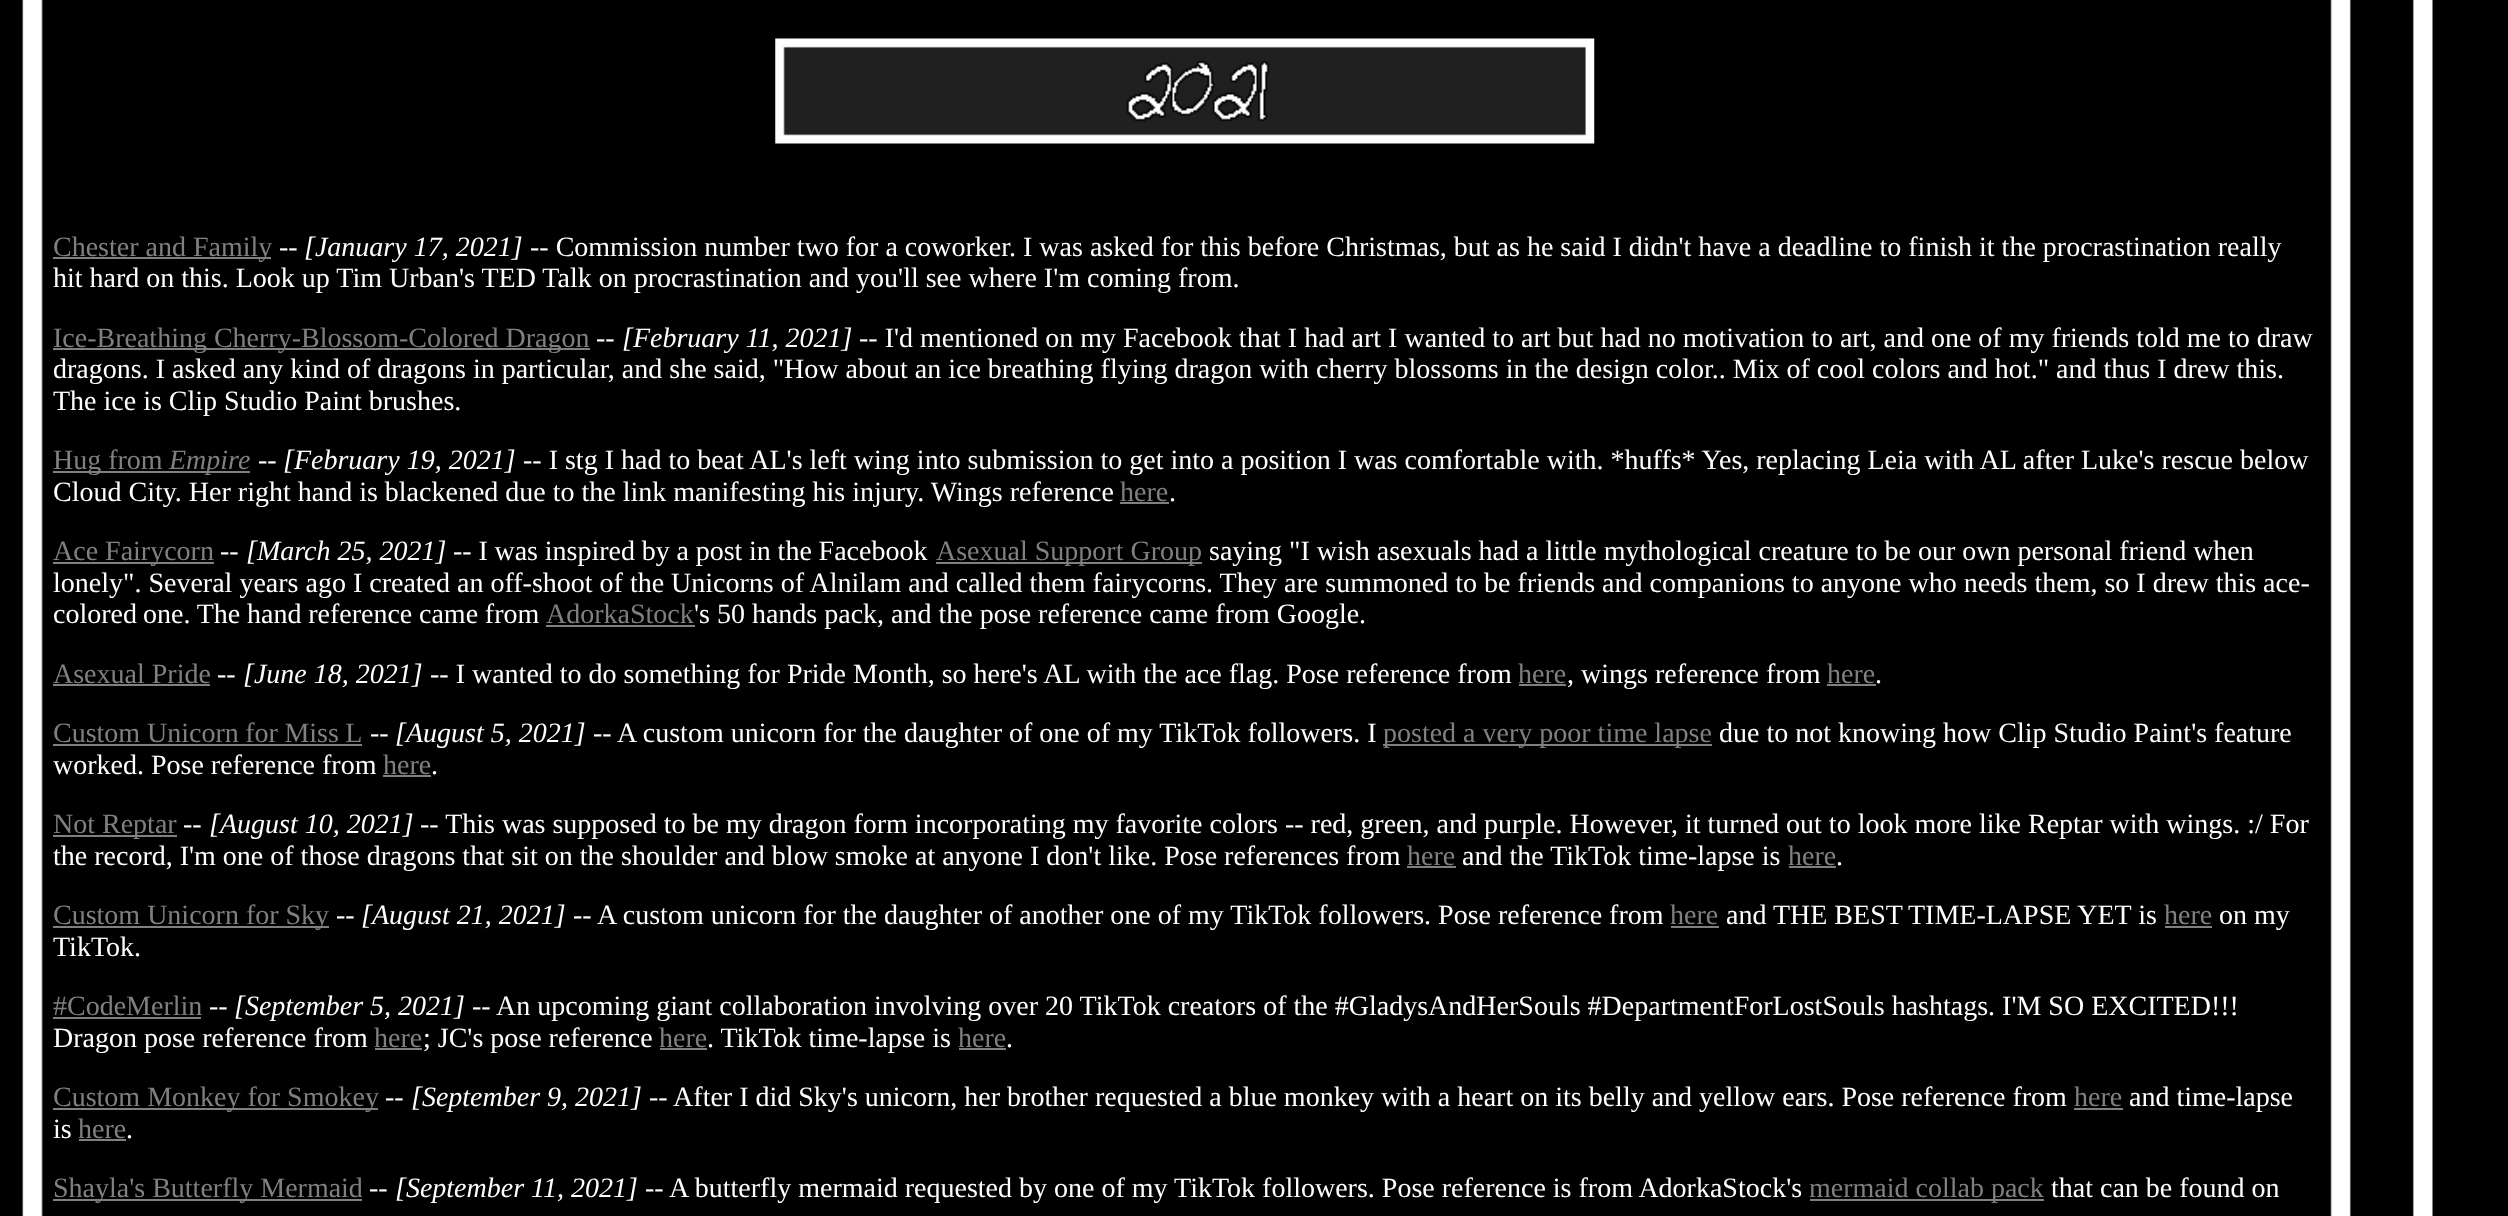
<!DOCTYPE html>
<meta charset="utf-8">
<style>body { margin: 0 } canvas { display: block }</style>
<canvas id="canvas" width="2508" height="1216"></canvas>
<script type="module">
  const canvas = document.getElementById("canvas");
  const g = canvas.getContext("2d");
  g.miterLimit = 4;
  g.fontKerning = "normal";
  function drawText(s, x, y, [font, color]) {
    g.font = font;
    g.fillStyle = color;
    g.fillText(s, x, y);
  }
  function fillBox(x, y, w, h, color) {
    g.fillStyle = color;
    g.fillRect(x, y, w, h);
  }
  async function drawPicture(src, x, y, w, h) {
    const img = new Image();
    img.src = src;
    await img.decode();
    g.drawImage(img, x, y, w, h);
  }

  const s1 = ["28px Liberation Serif", "#808080"];
  const s2 = ["28px Liberation Serif", "#FFFFFF"];
  const s3 = ["italic 28px Liberation Serif", "#FFFFFF"];
  const s4 = ["italic 28px Liberation Serif", "#808080"];

  fillBox(0, 0, 2508, 1216, "#FFFFFF");
  await drawPicture("pic1.png", 0, 0, 2508, 1216);
  await drawPicture("pic2.png", 775, 38, 820, 106);
  fillBox(53, 257, 218, 2, "#808080");
  drawText("Chester and Family", 53, 256, s1);
  drawText("--", 279, 256, s2);
  drawText("[January 17, 2021]", 304, 256, s3);
  drawText("-- Commission number two for a coworker. I was asked for this before Christmas, but as he said I didn't have a deadline to finish it the procrastination really", 530, 256, s2);
  drawText("hit hard on this. Look up Tim Urban's TED Talk on procrastination and you'll see where I'm coming from.", 53, 287, s2);
  fillBox(53, 348, 537, 2, "#808080");
  drawText("Ice-Breathing Cherry-Blossom-Colored Dragon", 53, 347, s1);
  drawText("--", 596, 347, s2);
  drawText("[February 11, 2021]", 622, 347, s3);
  drawText("-- I'd mentioned on my Facebook that I had art I wanted to art but had no motivation to art, and one of my friends told me to draw", 859, 347, s2);
  drawText("dragons. I asked any kind of dragons in particular, and she said, \"How about an ice breathing flying dragon with cherry blossoms in the design color.. Mix of cool colors and hot.\" and thus I drew this.", 53, 378, s2);
  drawText("The ice is Clip Studio Paint brushes.", 53, 410, s2);
  fillBox(53, 471, 197, 2, "#808080");
  drawText("Hug from", 53, 469, s1);
  drawText("Empire", 169, 469, s4);
  drawText("--", 258, 469, s2);
  drawText("[February 19, 2021]", 283, 469, s3);
  drawText("-- I stg I had to beat AL's left wing into submission to get into a position I was comfortable with. *huffs* Yes, replacing Leia with AL after Luke's rescue below", 523, 469, s2);
  drawText("Cloud City. Her right hand is blackened due to the link manifesting his injury. Wings reference", 53, 501, s2);
  drawText("here", 1120, 501, s1);
  fillBox(1120, 502, 49, 2, "#808080");
  drawText(".", 1169, 501, s2);
  fillBox(53, 562, 161, 2, "#808080");
  drawText("Ace Fairycorn", 53, 560, s1);
  drawText("--", 220, 560, s2);
  drawText("[March 25, 2021]", 246, 560, s3);
  g.wordSpacing = "-0.25px";
  drawText("-- I was inspired by a post in the Facebook", 453, 560, s2);
  fillBox(936, 562, 266, 2, "#808080");
  g.wordSpacing = "0px";
  drawText("Asexual Support Group", 936, 560, s1);
  drawText("saying \"I wish asexuals had a little mythological creature to be our own personal friend when", 1209, 560, s2);
  drawText("lonely\". Several years ago I created an off-shoot of the Unicorns of Alnilam and called them fairycorns. They are summoned to be friends and companions to anyone who needs them, so I drew this ace-", 53, 592, s2);
  drawText("colored", 53, 623, s2);
  g.wordSpacing = "-0.25px";
  drawText("one. The hand reference came from", 143, 623, s2);
  g.wordSpacing = "0px";
  drawText("AdorkaStock", 546, 623, s1);
  fillBox(546, 625, 149, 2, "#808080");
  drawText("'s 50 hands pack, and the pose reference came from Google.", 694, 623, s2);
  drawText("Asexual Pride", 53, 683, s1);
  fillBox(53, 684, 157, 2, "#808080");
  drawText("--", 217, 683, s2);
  drawText("[June 18, 2021]", 243, 683, s3);
  drawText("-- I wanted to do something for Pride Month, so here's AL with the ace flag. Pose reference from", 430, 683, s2);
  drawText("here", 1518, 683, s1);
  fillBox(1519, 684, 47, 2, "#808080");
  drawText(", wings reference from", 1567, 683, s2);
  drawText("here", 1827, 683, s1);
  fillBox(1827, 684, 49, 2, "#808080");
  drawText(".", 1875, 683, s2);
  drawText("Custom", 53, 742, s1);
  fillBox(53, 744, 309, 2, "#808080");
  g.wordSpacing = "-0.5px";
  drawText("Unicorn for Miss L", 147, 742, s1);
  g.wordSpacing = "0px";
  drawText("--", 370, 742, s2);
  drawText("[August 5, 2021]", 395, 742, s3);
  drawText("-- A custom unicorn for the daughter of one of my TikTok followers. I", 593, 742, s2);
  fillBox(1383, 744, 329, 2, "#808080");
  drawText("posted a very poor time lapse", 1383, 742, s1);
  drawText("due to not knowing how Clip Studio Paint's feature", 1719, 742, s2);
  drawText("worked. Pose reference from", 53, 774, s2);
  drawText("here", 383, 774, s1);
  fillBox(383, 775, 48, 2, "#808080");
  drawText(".", 431, 774, s2);
  fillBox(53, 835, 124, 2, "#808080");
  drawText("Not Reptar", 53, 833, s1);
  drawText("--", 183, 833, s2);
  drawText("[August 10, 2021]", 209, 833, s3);
  drawText("-- This was supposed to be my dragon form incorporating my favorite colors -- red, green, and purple. However, it turned out to look more like Reptar with wings. :/ For", 420, 833, s2);
  drawText("the record, I'm one of those dragons that sit on the shoulder and blow smoke at anyone I don't like. Pose references from", 53, 865, s2);
  drawText("here", 1407, 865, s1);
  fillBox(1407, 866, 49, 2, "#808080");
  drawText("and the TikTok time-lapse is", 1462, 865, s2);
  drawText("here", 1788, 865, s1);
  fillBox(1789, 866, 47, 2, "#808080");
  drawText(".", 1836, 865, s2);
  fillBox(53, 926, 276, 2, "#808080");
  drawText("Custom Unicorn for Sky", 53, 924, s1);
  drawText("--", 336, 924, s2);
  drawText("[August 21, 2021]", 361, 924, s3);
  drawText("-- A custom unicorn for the daughter of another one of my TikTok followers. Pose reference from", 573, 924, s2);
  drawText("here", 1670, 924, s1);
  fillBox(1671, 926, 48, 2, "#808080");
  drawText("and THE BEST", 1726, 924, s2);
  drawText("TIME-LAPSE YET is", 1908, 924, s2);
  drawText("here", 2164, 924, s1);
  fillBox(2165, 926, 47, 2, "#808080");
  drawText("on my", 2219, 924, s2);
  drawText("TikTok.", 53, 956, s2);
  drawText("#CodeMerlin", 53, 1015, s1);
  fillBox(53, 1017, 148, 2, "#808080");
  drawText("--", 209, 1015, s2);
  drawText("[September 5, 2021]", 234, 1015, s3);
  drawText("-- An upcoming giant collaboration involving over 20 TikTok creators of the #GladysAndHerSouls #DepartmentForLostSouls hashtags. I'M SO EXCITED!!!", 472, 1015, s2);
  drawText("Dragon pose reference from", 53, 1047, s2);
  drawText("here", 374, 1047, s1);
  fillBox(375, 1048, 47, 2, "#808080");
  drawText("; JC's pose reference", 423, 1047, s2);
  drawText("here", 659, 1047, s1);
  fillBox(660, 1048, 47, 2, "#808080");
  drawText(". TikTok time-lapse is", 707, 1047, s2);
  drawText("here", 958, 1047, s1);
  fillBox(959, 1048, 47, 2, "#808080");
  drawText(".", 1006, 1047, s2);
  fillBox(53, 1108, 325, 2, "#808080");
  drawText("Custom Monkey for Smokey", 53, 1106, s1);
  drawText("--", 385, 1106, s2);
  drawText("[September 9, 2021]", 411, 1106, s3);
  drawText("-- After I did Sky's unicorn, her brother requested a blue monkey with a heart on its belly and yellow ears. Pose reference from", 649, 1106, s2);
  drawText("here", 2074, 1106, s1);
  fillBox(2074, 1108, 49, 2, "#808080");
  drawText("and time-lapse", 2129, 1106, s2);
  drawText("is", 53, 1138, s2);
  drawText("here", 78, 1138, s1);
  fillBox(79, 1139, 47, 2, "#808080");
  drawText(".", 126, 1138, s2);
  fillBox(53, 1199, 309, 2, "#808080");
  drawText("Shayla's Butterfly Mermaid", 53, 1197, s1);
  drawText("--", 369, 1197, s2);
  drawText("[September 11, 2021]", 395, 1197, s3);
  drawText("-- A butterfly mermaid requested by one of my TikTok followers. Pose reference is from AdorkaStock's", 645, 1197, s2);
  fillBox(1810, 1199, 234, 2, "#808080");
  drawText("mermaid collab pack", 1809, 1197, s1);
  drawText("that can be found on", 2051, 1197, s2);
</script>
